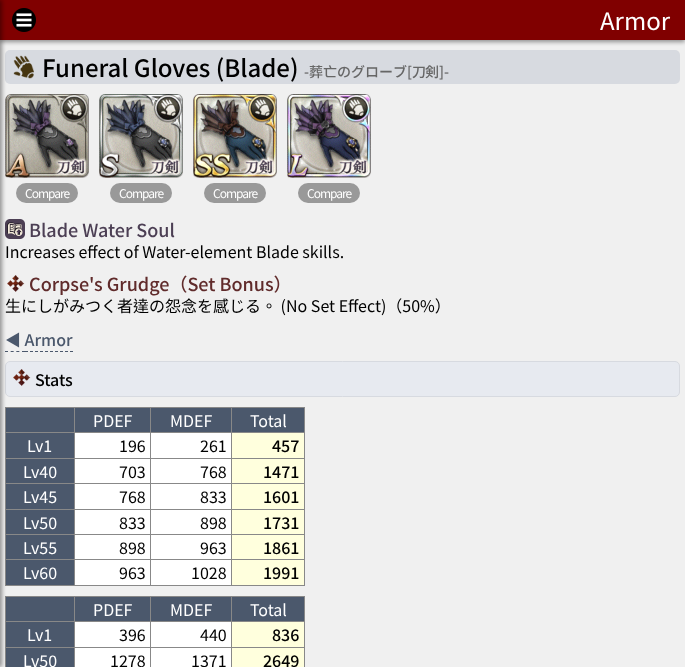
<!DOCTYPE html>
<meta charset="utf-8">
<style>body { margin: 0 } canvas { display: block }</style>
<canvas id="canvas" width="685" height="667"></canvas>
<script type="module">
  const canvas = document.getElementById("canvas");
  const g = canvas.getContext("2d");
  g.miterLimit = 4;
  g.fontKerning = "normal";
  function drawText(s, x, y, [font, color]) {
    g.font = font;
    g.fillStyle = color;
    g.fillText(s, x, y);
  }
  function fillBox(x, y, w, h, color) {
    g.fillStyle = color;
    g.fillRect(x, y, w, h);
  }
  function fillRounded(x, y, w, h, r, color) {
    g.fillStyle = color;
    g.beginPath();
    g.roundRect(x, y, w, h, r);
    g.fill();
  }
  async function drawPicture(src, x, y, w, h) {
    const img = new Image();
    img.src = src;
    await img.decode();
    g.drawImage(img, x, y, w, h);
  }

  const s1 = ["24px Noto Sans TC", "#FFFFFF"];
  const s2 = ["500 24px Noto Sans TC", "#000000"];
  const s3 = ["500 14px Noto Sans TC", "#666666"];
  const s4 = ["500 14px Noto Sans JP", "#666666"];
  const s5 = ["12px Noto Sans TC", "#FFFFFF"];
  const s6 = ["500 18px Noto Sans TC", "#4C3F54"];
  const s7 = ["16px Noto Sans TC", "#000000"];
  const s8 = ["500 18px Noto Sans TC", "#602B2B"];
  const s9 = ["500 16px Noto Sans TC", "#4B586C"];
  const s10 = ["500 16px Noto Sans TC", "#000000"];
  const s11 = ["16px Noto Sans TC", "#FFFFFF"];

  fillBox(0, 0, 685, 667, "#F0F0F0");
  g.fillStyle = "rgba(0, 0, 0, 0.4)";
  g.filter = "blur(2px)";
  g.beginPath();
  g.rect(0, 2, 685, 40);
  g.fill();
  g.filter = "none";
  fillBox(0, 0, 685, 40, "#800000");
  fillRounded(5, 50, 675, 34, 5, "#D7DAE0");
  await drawPicture("pic3.png", 5, 94, 84, 84);
  await drawPicture("pic7.png", 5, 219, 20, 20);
  await drawPicture("pic8.png", 7, 275, 18, 17);
  g.beginPath();
  g.moveTo(5, 351.5);
  g.lineTo(25, 351.5);
  g.strokeStyle = "#4B586C";
  g.setLineDash([3, 2.67]);
  g.stroke();
  g.fillStyle = "#E7EAF0";
  g.beginPath();
  g.roundRect(5.5, 361.5, 674, 35, 4.5);
  g.fill();
  g.strokeStyle = "#D7DAE0";
  g.setLineDash([]);
  g.stroke();
  fillBox(5, 407, 300, 1, "#888888");
  fillBox(304, 407, 1, 179, "#888888");
  fillBox(5, 585, 300, 1, "#888888");
  fillBox(5, 407, 1, 179, "#888888");
  fillBox(6, 408, 68, 24, "#4B586C");
  fillBox(6, 433, 68, 25, "#4B586C");
  fillBox(231, 432, 74, 1, "#888888");
  fillBox(231, 458, 74, 1, "#888888");
  fillBox(231, 483, 74, 1, "#888888");
  fillBox(231, 509, 74, 1, "#888888");
  fillBox(231, 534, 74, 1, "#888888");
  fillBox(231, 559, 74, 1, "#888888");
  fillBox(231, 559, 1, 27, "#888888");
  fillBox(150, 559, 82, 1, "#888888");
  fillBox(231, 534, 1, 26, "#888888");
  fillBox(150, 534, 82, 1, "#888888");
  fillBox(231, 509, 1, 26, "#888888");
  fillBox(150, 509, 82, 1, "#888888");
  fillBox(231, 483, 1, 27, "#888888");
  fillBox(150, 483, 82, 1, "#888888");
  fillBox(231, 458, 1, 26, "#888888");
  fillBox(150, 458, 82, 1, "#888888");
  fillBox(231, 432, 1, 27, "#888888");
  fillBox(150, 432, 82, 1, "#888888");
  fillBox(150, 559, 1, 27, "#888888");
  fillBox(74, 559, 77, 1, "#888888");
  fillBox(150, 534, 1, 26, "#888888");
  fillBox(74, 534, 77, 1, "#888888");
  fillBox(150, 509, 1, 26, "#888888");
  fillBox(74, 509, 77, 1, "#888888");
  fillBox(150, 483, 1, 27, "#888888");
  fillBox(74, 483, 77, 1, "#888888");
  fillBox(150, 458, 1, 26, "#888888");
  fillBox(74, 458, 77, 1, "#888888");
  fillBox(150, 432, 1, 27, "#888888");
  fillBox(74, 432, 77, 1, "#888888");
  fillBox(74, 559, 1, 27, "#888888");
  fillBox(5, 559, 70, 1, "#888888");
  fillBox(74, 534, 1, 26, "#888888");
  fillBox(5, 534, 70, 1, "#888888");
  fillBox(74, 509, 1, 26, "#888888");
  fillBox(5, 509, 70, 1, "#888888");
  fillBox(74, 483, 1, 27, "#888888");
  fillBox(5, 483, 70, 1, "#888888");
  fillBox(74, 458, 1, 26, "#888888");
  fillBox(5, 458, 70, 1, "#888888");
  fillBox(74, 432, 1, 27, "#888888");
  fillBox(5, 432, 70, 1, "#888888");
  fillBox(6, 459, 68, 24, "#4B586C");
  fillBox(6, 484, 68, 25, "#4B586C");
  fillBox(6, 510, 68, 24, "#4B586C");
  fillBox(6, 535, 68, 24, "#4B586C");
  fillBox(6, 560, 68, 25, "#4B586C");
  fillBox(5, 596, 300, 1, "#888888");
  fillBox(5, 596, 1, 71, "#888888");
  fillBox(6, 597, 68, 24, "#4B586C");
  fillBox(6, 622, 68, 25, "#4B586C");
  fillBox(304, 596, 1, 71, "#888888");
  fillBox(231, 621, 74, 1, "#888888");
  fillBox(231, 647, 74, 1, "#888888");
  fillBox(231, 647, 1, 20, "#888888");
  fillBox(150, 647, 82, 1, "#888888");
  fillBox(231, 621, 1, 27, "#888888");
  fillBox(150, 621, 82, 1, "#888888");
  fillBox(150, 647, 1, 20, "#888888");
  fillBox(74, 647, 77, 1, "#888888");
  fillBox(150, 621, 1, 27, "#888888");
  fillBox(74, 621, 77, 1, "#888888");
  fillBox(74, 647, 1, 20, "#888888");
  fillBox(5, 647, 70, 1, "#888888");
  fillBox(74, 621, 1, 27, "#888888");
  fillBox(5, 621, 70, 1, "#888888");
  fillBox(6, 648, 68, 19, "#4B586C");
  g.fillStyle = "rgba(0, 0, 0, 0.4)";
  g.filter = "blur(2px)";
  g.beginPath();
  g.rect(-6, 0, 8, 667);
  g.fill();
  g.filter = "none";
  await drawPicture("pic1.png", 12, 8, 24, 24);
  drawText("Armor", 600, 30, s1);
  await drawPicture("pic2.png", 13, 55, 21, 24);
  drawText("Funeral Gloves (Blade)", 42, 77, s2);
  drawText("-葬亡のグローブ[刀", 304, 77, s3);
  drawText("剣", 425, 77, s4);
  drawText("]-", 439, 77, s3);
  fillRounded(16, 183, 62, 20, 10, "#999999");
  g.letterSpacing = "-1px";
  drawText("Compare", 25, 198, s5);
  await drawPicture("pic4.png", 99, 94, 84, 84);
  fillRounded(110, 183, 62, 20, 10, "#999999");
  drawText("Compare", 119, 198, s5);
  await drawPicture("pic5.png", 193, 94, 84, 84);
  fillRounded(204, 183, 62, 20, 10, "#999999");
  drawText("Compare", 213, 198, s5);
  await drawPicture("pic6.png", 287, 94, 84, 84);
  fillRounded(298, 183, 62, 20, 10, "#999999");
  drawText("Compare", 307, 198, s5);
  g.letterSpacing = "0px";
  drawText("Blade Water Soul", 29, 237, s6);
  drawText("Increases effect of Water-element Blade skills.", 5, 258, s7);
  drawText("Corpse's Grudge（Set Bonus）", 29, 291, s8);
  drawText("生にしがみつく者達の怨念を感じる。 (No Set Effect)（50%）", 5, 312, s7);
  drawText("◀ Armor", 5, 346, s9);
  g.beginPath();
  g.moveTo(25, 351.5);
  g.lineTo(73, 351.5);
  g.strokeStyle = "#4B586C";
  g.setLineDash([3, 2]);
  g.stroke();
  await drawPicture("pic9.png", 13, 369, 18, 17);
  drawText("Stats", 35, 386, s10);
  fillBox(75, 408, 75, 24, "#4B586C");
  fillBox(74, 407, 1, 26, "#888888");
  drawText("PDEF", 93, 427, s11);
  fillBox(151, 408, 80, 24, "#4B586C");
  fillBox(150, 407, 1, 26, "#888888");
  drawText("MDEF", 170, 427, s11);
  fillBox(232, 408, 72, 24, "#4B586C");
  fillBox(231, 407, 1, 26, "#888888");
  drawText("Total", 250, 427, s11);
  drawText("Lv1", 27, 452, s11);
  fillBox(75, 433, 75, 25, "#FFFFFF");
  drawText("196", 119, 452, s7);
  fillBox(151, 433, 80, 25, "#FFFFFF");
  drawText("261", 200, 452, s7);
  fillBox(232, 433, 72, 25, "#FFFFDD");
  drawText("457", 272, 452, s10);
  drawText("Lv40", 23, 478, s11);
  fillBox(75, 459, 75, 24, "#FFFFFF");
  drawText("703", 119, 478, s7);
  fillBox(151, 459, 80, 24, "#FFFFFF");
  drawText("768", 200, 478, s7);
  fillBox(232, 459, 72, 24, "#FFFFDD");
  drawText("1471", 263, 478, s10);
  drawText("Lv45", 23, 503, s11);
  fillBox(75, 484, 75, 25, "#FFFFFF");
  drawText("768", 119, 503, s7);
  fillBox(151, 484, 80, 25, "#FFFFFF");
  drawText("833", 200, 503, s7);
  fillBox(232, 484, 72, 25, "#FFFFDD");
  drawText("1601", 263, 503, s10);
  drawText("Lv50", 23, 529, s11);
  fillBox(75, 510, 75, 24, "#FFFFFF");
  drawText("833", 119, 529, s7);
  fillBox(151, 510, 80, 24, "#FFFFFF");
  drawText("898", 200, 529, s7);
  fillBox(232, 510, 72, 24, "#FFFFDD");
  drawText("1731", 263, 529, s10);
  drawText("Lv55", 23, 554, s11);
  fillBox(75, 535, 75, 24, "#FFFFFF");
  drawText("898", 119, 554, s7);
  fillBox(151, 535, 80, 24, "#FFFFFF");
  drawText("963", 200, 554, s7);
  fillBox(232, 535, 72, 24, "#FFFFDD");
  drawText("1861", 263, 554, s10);
  drawText("Lv60", 23, 579, s11);
  fillBox(75, 560, 75, 25, "#FFFFFF");
  drawText("963", 119, 579, s7);
  fillBox(151, 560, 80, 25, "#FFFFFF");
  drawText("1028", 191, 579, s7);
  fillBox(232, 560, 72, 25, "#FFFFDD");
  drawText("1991", 263, 579, s10);
  fillBox(75, 597, 75, 24, "#4B586C");
  fillBox(74, 596, 1, 26, "#888888");
  drawText("PDEF", 93, 616, s11);
  fillBox(151, 597, 80, 24, "#4B586C");
  fillBox(150, 596, 1, 26, "#888888");
  drawText("MDEF", 170, 616, s11);
  fillBox(232, 597, 72, 24, "#4B586C");
  fillBox(231, 596, 1, 26, "#888888");
  drawText("Total", 250, 616, s11);
  drawText("Lv1", 27, 641, s11);
  fillBox(75, 622, 75, 25, "#FFFFFF");
  drawText("396", 119, 641, s7);
  fillBox(151, 622, 80, 25, "#FFFFFF");
  drawText("440", 200, 641, s7);
  fillBox(232, 622, 72, 25, "#FFFFDD");
  drawText("836", 272, 641, s10);
  drawText("Lv50", 23, 667, s11);
  fillBox(75, 648, 75, 19, "#FFFFFF");
  drawText("1278", 110, 667, s7);
  fillBox(151, 648, 80, 19, "#FFFFFF");
  drawText("1371", 191, 667, s7);
  fillBox(232, 648, 72, 19, "#FFFFDD");
  drawText("2649", 263, 667, s10);
</script>
